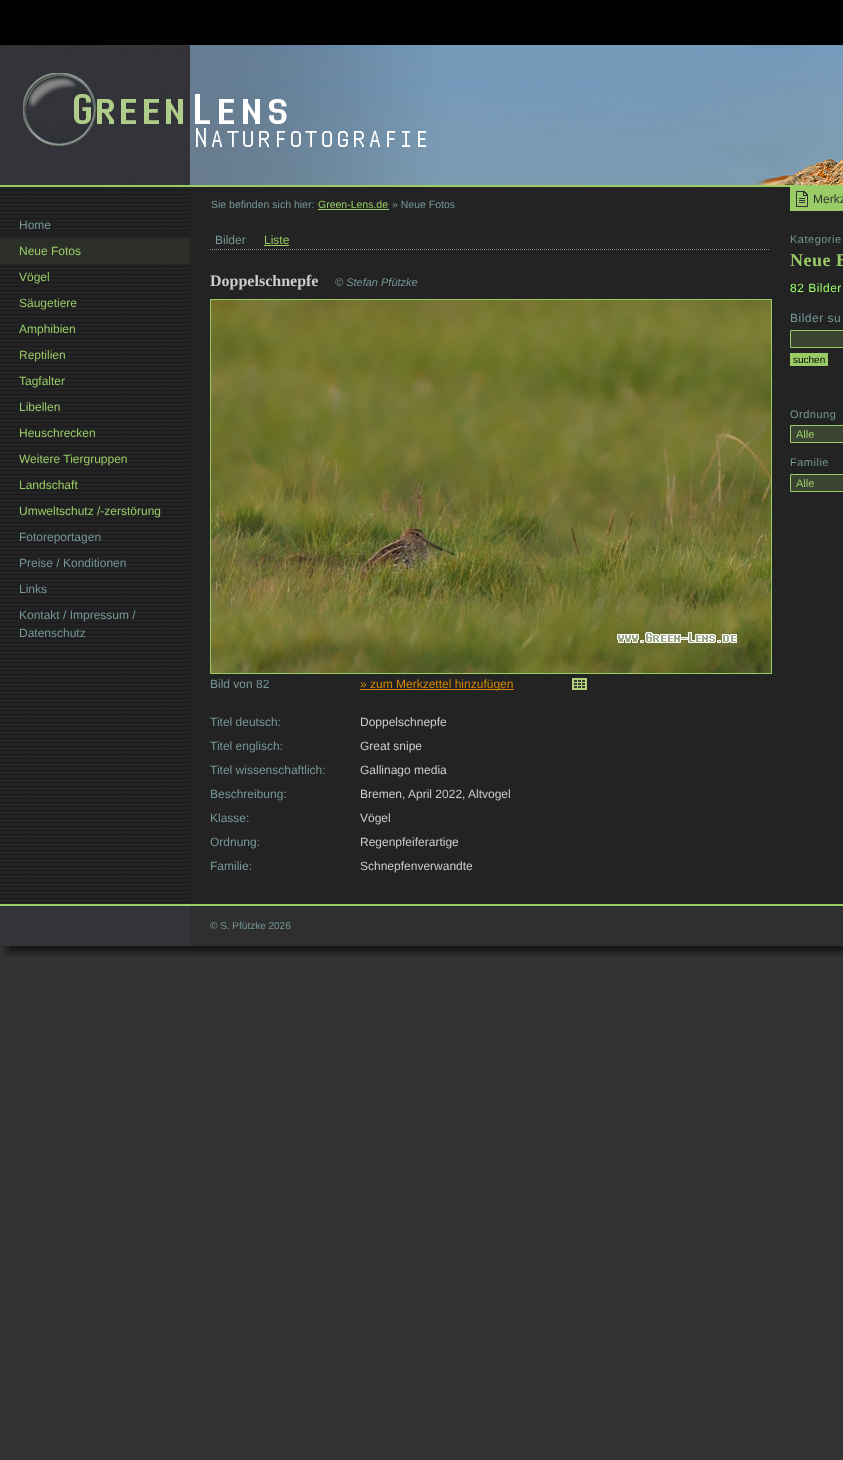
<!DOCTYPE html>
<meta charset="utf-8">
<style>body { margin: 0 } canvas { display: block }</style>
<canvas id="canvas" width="843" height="1460"></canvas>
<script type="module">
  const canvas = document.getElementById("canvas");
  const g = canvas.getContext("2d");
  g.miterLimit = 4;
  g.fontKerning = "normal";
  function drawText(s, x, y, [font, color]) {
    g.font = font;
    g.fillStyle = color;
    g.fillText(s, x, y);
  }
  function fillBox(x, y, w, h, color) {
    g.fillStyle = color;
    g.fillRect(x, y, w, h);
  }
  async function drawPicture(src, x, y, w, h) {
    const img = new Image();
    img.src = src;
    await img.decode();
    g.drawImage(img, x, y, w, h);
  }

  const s1 = ["12px Liberation Sans", "#769797"];
  const s2 = ["12px Liberation Sans", "#99CC66"];
  const s3 = ["10.5px Liberation Sans", "#769797"];
  const s4 = ["10.5px Liberation Sans", "#99CC66"];
  const s5 = ["bold 16px Liberation Serif", "#CCCCCC"];
  const s6 = ["italic 11px Liberation Sans", "#769797"];
  const s7 = ["12px Liberation Sans", "#D48700"];
  const s8 = ["12px Liberation Sans", "#CCCCCC"];
  const s9 = ["12px Liberation Sans", "#333333"];
  const s10 = ["11px Liberation Sans", "#769797"];
  const s11 = ["bold 18px Liberation Serif", "#99CC66"];
  const s12 = ["12px Liberation Sans", "#99FF66"];
  const s13 = ["10px Liberation Sans", "#000000"];
  const s14 = ["11px Liberation Sans", "#99CC66"];
  const s15 = ["10px Liberation Sans", "#769797"];

  fillBox(0, 0, 843, 1460, "#333333");
  await drawPicture("pic1.png", 0, 0, 843, 45);
  fillBox(0, 185, 843, 2, "#99CC66");
  await drawPicture("pic2.png", 0, 45, 190, 140);
  await drawPicture("pic3.png", 190, 45, 653, 140);
  await drawPicture("pic4.png", 0, 187, 843, 717);
  drawText("Home", 19, 229, s1);
  fillBox(0, 238, 190, 26, "#2B2F28");
  drawText("Neue Fotos", 19, 255, s2);
  drawText("Vögel", 19, 281, s2);
  drawText("Säugetiere", 19, 307, s2);
  drawText("Amphibien", 19, 333, s2);
  drawText("Reptilien", 19, 359, s2);
  drawText("Tagfalter", 19, 385, s2);
  drawText("Libellen", 19, 411, s2);
  drawText("Heuschrecken", 19, 437, s2);
  drawText("Weitere Tiergruppen", 19, 463, s2);
  drawText("Landschaft", 19, 489, s2);
  drawText("Umweltschutz /-zerstörung", 19, 515, s2);
  drawText("Fotoreportagen", 19, 541, s1);
  drawText("Preise / Konditionen", 19, 567, s1);
  drawText("Links", 19, 593, s1);
  drawText("Kontakt / Impressum /", 19, 619, s1);
  drawText("Datenschutz", 19, 637, s1);
  drawText("Sie befinden sich hier:", 211, 208, s3);
  drawText("Green-Lens.de", 318, 208, s4);
  fillBox(318, 209, 71, 1, "#99CC66");
  drawText("» Neue Fotos", 392, 208, s3);
  g.beginPath();
  g.moveTo(210, 249.5);
  g.lineTo(770, 249.5);
  g.strokeStyle = "#769797";
  g.setLineDash([1, 1]);
  g.stroke();
  drawText("Bilder", 215, 244, s1);
  drawText("Liste", 264, 244, s2);
  fillBox(264, 245, 25, 1, "#99CC66");
  drawText("Doppelschnepfe", 210, 286, s5);
  drawText("© Stefan Pfützke", 335, 286, s6);
  g.strokeStyle = "#99CC66";
  g.setLineDash([]);
  g.strokeRect(210.5, 299.5, 561, 374);
  await drawPicture("pic5.png", 211, 300, 560, 373);
  drawText("Bild von 82", 210, 688, s1);
  fillBox(360, 689, 154, 1, "#D48700");
  drawText("» zum Merkzettel hinzufügen", 360, 688, s7);
  await drawPicture("pic6.png", 572, 678, 15, 12);
  drawText("Titel deutsch:", 210, 726, s1);
  drawText("Doppelschnepfe", 360, 726, s8);
  drawText("Titel englisch:", 210, 750, s1);
  drawText("Great snipe", 360, 750, s8);
  drawText("Titel wissenschaftlich:", 210, 774, s1);
  drawText("Gallinago media", 360, 774, s8);
  drawText("Beschreibung:", 210, 798, s1);
  drawText("Bremen, April 2022,", 360, 798, s8);
  drawText("Altvogel", 468, 798, s8);
  drawText("Klasse:", 210, 822, s1);
  drawText("Vögel", 360, 822, s8);
  drawText("Ordnung:", 210, 846, s1);
  drawText("Regenpfeiferartige", 360, 846, s8);
  drawText("Familie:", 210, 870, s1);
  drawText("Schnepfenverwandte", 360, 870, s8);
  fillBox(790, 187, 53, 24, "#99CC66");
  await drawPicture("pic7.png", 796, 191, 12, 16);
  drawText("Merkz", 813, 203, s9);
  g.letterSpacing = "0.5px";
  drawText("Kategorie", 790, 243, s10);
  drawText("Neue B", 790, 266, s11);
  drawText("82 Bilder", 790, 292, s12);
  drawText("Bilder su", 790, 322, s1);
  g.fillStyle = "#3B4432";
  g.beginPath();
  g.rect(790.5, 330.5, 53, 17);
  g.fill();
  g.stroke();
  fillBox(790, 353, 38, 13, "#99CC66");
  g.letterSpacing = "0px";
  drawText("suchen", 793, 363, s13);
  g.letterSpacing = "0.5px";
  drawText("Ordnung", 790, 418, s10);
  g.fillStyle = "#3B4432";
  g.beginPath();
  g.rect(790.5, 425.5, 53, 17);
  g.fill();
  g.stroke();
  g.letterSpacing = "0px";
  drawText("Alle", 796, 438, s14);
  g.letterSpacing = "0.5px";
  drawText("Familie", 790, 466, s10);
  g.fillStyle = "#3B4432";
  g.beginPath();
  g.rect(790.5, 474.5, 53, 17);
  g.fill();
  g.stroke();
  g.letterSpacing = "0px";
  drawText("Alle", 796, 487, s14);
  fillBox(190, 906, 653, 40, "#2F2F2F");
  fillBox(0, 906, 190, 40, "#343339");
  fillBox(0, 904, 843, 2, "#99CC66");
  drawText("© S. Pfützke 2026", 210, 929, s15);
  await drawPicture("pic8.png", 0, 946, 843, 11);
  await drawPicture("pic9.png", 0, 946, 11, 10);
</script>
